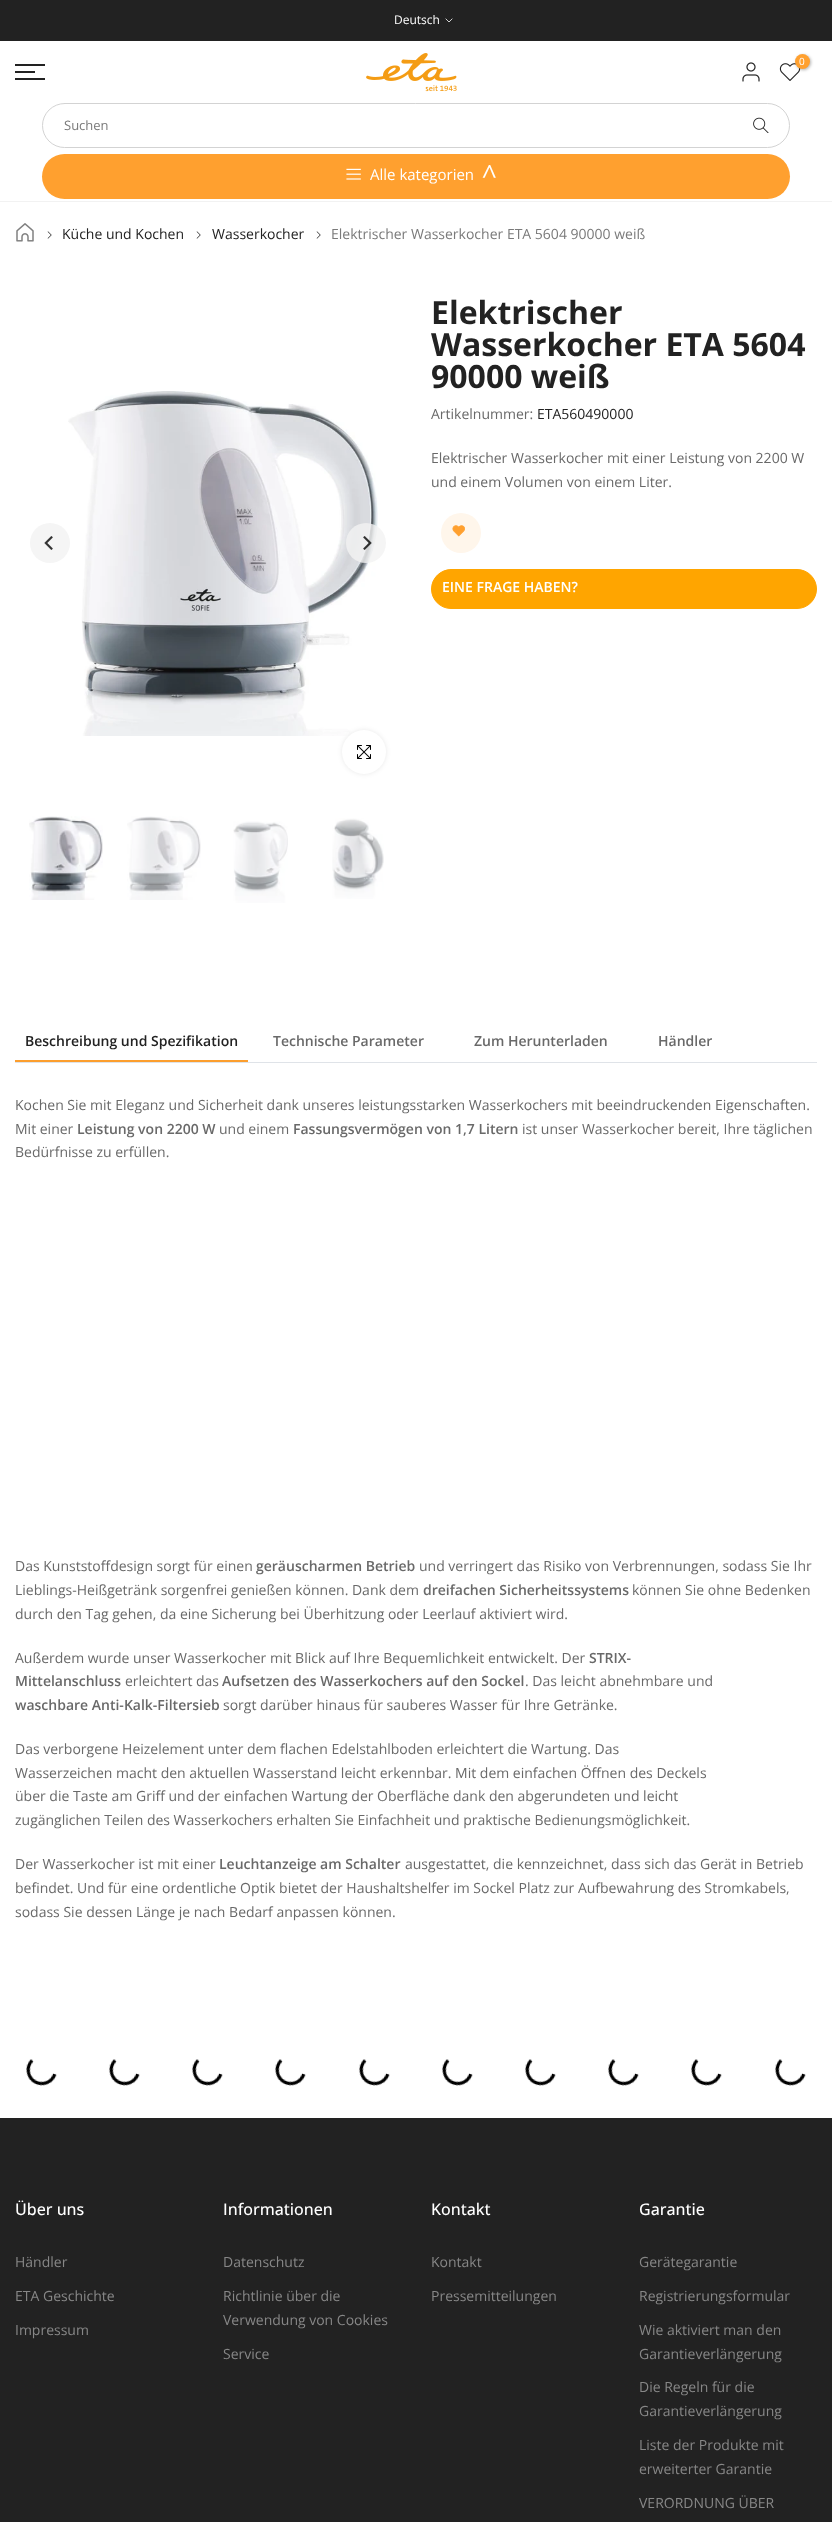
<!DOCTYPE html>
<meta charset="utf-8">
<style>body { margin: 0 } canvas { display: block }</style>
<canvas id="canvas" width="832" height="2522"></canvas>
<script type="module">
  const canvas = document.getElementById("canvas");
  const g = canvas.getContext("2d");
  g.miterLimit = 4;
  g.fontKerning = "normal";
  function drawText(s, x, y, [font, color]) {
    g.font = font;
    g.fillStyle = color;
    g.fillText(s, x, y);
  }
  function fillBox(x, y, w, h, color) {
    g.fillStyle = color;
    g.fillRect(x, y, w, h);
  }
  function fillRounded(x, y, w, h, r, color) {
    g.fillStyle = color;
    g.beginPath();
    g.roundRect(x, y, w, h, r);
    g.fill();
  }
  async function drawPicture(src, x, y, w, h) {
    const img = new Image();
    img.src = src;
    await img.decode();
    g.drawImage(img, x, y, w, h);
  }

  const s1 = ["12px Open Sans", "#FFFFFF"];
  const s2 = ["10px Open Sans", "#FFFFFF"];
  const s3 = ["13px Open Sans", "#7A7A7A"];
  const s4 = ["15px Open Sans", "#FFFFFF"];
  const s5 = ["14px Open Sans", "#222222"];
  const s6 = ["14px Open Sans", "#7A7A7A"];
  const s7 = ["bold 32px Open Sans", "#222222"];
  const s8 = ["14px Open Sans", "#696969"];
  const s9 = ["600 14px Open Sans", "#FFFFFF"];
  const s10 = ["600 14px Open Sans", "#222222"];
  const s11 = ["600 14px Open Sans", "#696969"];
  const s12 = ["500 16px Open Sans", "#FFFFFF"];
  const s13 = ["14px Open Sans", "#878787"];

  fillBox(0, 0, 832, 2522, "#FFFFFF");
  fillBox(0, 0, 832, 41, "#222222");
  drawText("Deutsch", 394, 24, s1);
  g.beginPath();
  g.moveTo(452, 19);
  g.lineTo(449, 22);
  g.lineTo(446, 19);
  g.strokeStyle = "#FFFFFF";
  g.lineWidth = 0.8;
  g.lineCap = "square";
  g.stroke();
  await drawPicture("pic1.png", 366, 53, 91, 39);
  await drawPicture("pic2.png", 742, 62, 18, 20);
  await drawPicture("pic3.png", 779, 63, 22, 18);
  g.fillStyle = "rgba(0, 0, 0, 0.3)";
  g.filter = "blur(1.5px)";
  g.beginPath();
  g.roundRect(796, 55, 15, 15, 7.5);
  g.fill();
  g.filter = "none";
  g.fillStyle = "#FFA02F";
  g.beginPath();
  g.arc(802.5, 61.5, 7.5, 0, Math.PI * 2);
  g.fill();
  drawText("0", 799, 65, s2);
  fillBox(15, 64, 30, 2, "#222222");
  fillBox(15, 71, 20, 2, "#222222");
  fillBox(15, 78, 30, 2, "#222222");
  g.beginPath();
  g.roundRect(42.5, 103.5, 747, 44, 22);
  g.strokeStyle = "#D3D3D3";
  g.lineWidth = 1;
  g.stroke();
  drawText("Suchen", 64, 130, s3);
  await drawPicture("pic4.png", 753, 117, 16, 16);
  fillRounded(42, 154, 748, 45, 22.5, "#FFA02F");
  await drawPicture("pic5.png", 346, 168, 15, 12);
  drawText("Alle kategorien", 370, 180, s4);
  g.letterSpacing = "-7px";
  g.font = "27px Open Sans";
  g.save();
  g.translate(499, 179);
  g.rotate(-90 * Math.PI / 180);
  g.fillText(">", 0, 0);
  g.restore();
  fillBox(0, 201, 832, 1, "#F2F2F2");
  await drawPicture("pic6.png", 16, 223, 18, 19);
  await drawPicture("pic7.png", 47, 231, 5, 8);
  g.letterSpacing = "0px";
  drawText("Küche und Kochen", 62, 239, s5);
  await drawPicture("pic7.png", 196, 231, 5, 8);
  drawText("Wasserkocher", 212, 239, s5);
  await drawPicture("pic7.png", 316, 231, 5, 8);
  drawText("Elektrischer Wasserkocher ETA 5604 90000 weiß", 331, 239, s6);
  await drawPicture("pic9.png", 68, 391, 310, 345);
  g.fillStyle = "#F5F5F5";
  g.beginPath();
  g.arc(50, 543, 20, 0, Math.PI * 2);
  g.fill();
  await drawPicture("pic8.png", 44, 536, 9, 14);
  g.fillStyle = "rgba(242, 242, 242, 0.8)";
  g.beginPath();
  g.arc(366, 543, 20, 0, Math.PI * 2);
  g.fill();
  await drawPicture("pic10.png", 363, 536, 9, 14);
  g.fillStyle = "rgba(0, 0, 0, 0.09)";
  g.filter = "blur(2.5px)";
  g.beginPath();
  g.roundRect(342, 730, 44, 44, 22);
  g.fill();
  g.filter = "none";
  g.fillStyle = "#FFFFFF";
  g.beginPath();
  g.arc(364, 752, 22, 0, Math.PI * 2);
  g.fill();
  await drawPicture("pic11.png", 357, 745, 14, 14);
  await drawPicture("pic12.png", 29, 816, 74, 84);
  await drawPicture("pic13.png", 127, 816, 74, 84);
  await drawPicture("pic14.png", 233, 821, 55, 82);
  await drawPicture("pic15.png", 332, 818, 52, 81);
  drawText("Elektrischer", 431, 324, s7);
  drawText("Wasserkocher ETA 5604", 431, 356, s7);
  drawText("90000 weiß", 431, 388, s7);
  drawText("Artikelnummer:", 431, 419, s8);
  drawText("ETA560490000", 537, 419, s5);
  drawText("Elektrischer Wasserkocher mit einer Leistung von 2200 W", 431, 463, s8);
  drawText("und einem Volumen von einem Liter.", 431, 487, s8);
  g.fillStyle = "#FFF6EB";
  g.beginPath();
  g.arc(461, 533, 20, 0, Math.PI * 2);
  g.fill();
  await drawPicture("pic16.png", 452, 525, 13, 12);
  g.fillStyle = "#FFA500";
  g.beginPath();
  g.roundRect(431.5, 569.5, 385, 39, 19.5);
  g.fill();
  g.strokeStyle = "#FFA500";
  g.stroke();
  drawText("EINE FRAGE HABEN?", 442, 592, s9);
  fillBox(15, 1062, 802, 1, "#DFE3E8");
  fillBox(15, 1060, 233, 2, "#FC9E2E");
  drawText("Beschreibung und Spezifikation", 25, 1046, s10);
  drawText("Technische Parameter", 273, 1046, s11);
  drawText("Zum Herunterladen", 474, 1046, s11);
  drawText("Händler", 658, 1046, s11);
  drawText("Kochen Sie mit Eleganz und Sicherheit dank unseres leistungsstarken Wasserkochers mit beeindruckenden Eigenschaften.", 15, 1110, s8);
  drawText("Mit einer", 15, 1134, s8);
  drawText("Leistung von 2200 W", 77, 1134, s11);
  drawText("und einem", 219, 1134, s8);
  drawText("Fassungsvermögen von 1,7 Litern", 293, 1134, s11);
  drawText("ist unser Wasserkocher bereit, Ihre täglichen", 522, 1134, s8);
  drawText("Bedürfnisse zu erfüllen.", 15, 1157, s8);
  drawText("Das Kunststoffdesign sorgt für einen", 15, 1571, s8);
  drawText("geräuscharmen Betrieb", 256, 1571, s11);
  drawText("und verringert das Risiko von Verbrennungen, sodass Sie Ihr", 419, 1571, s8);
  drawText("Lieblings-Heißgetränk sorgenfrei genießen können. Dank dem", 15, 1595, s8);
  drawText("dreifachen Sicherheitssystems", 423, 1595, s11);
  drawText("können Sie ohne Bedenken", 632, 1595, s8);
  drawText("durch den Tag gehen, da eine Sicherung bei Überhitzung oder Leerlauf aktiviert wird.", 15, 1619, s8);
  drawText("Außerdem wurde unser Wasserkocher mit Blick auf Ihre Bequemlichkeit entwickelt. Der", 15, 1663, s8);
  drawText("STRIX-", 589, 1663, s11);
  drawText("Mittelanschluss", 15, 1686, s11);
  drawText("erleichtert das", 125, 1686, s8);
  drawText("Aufsetzen des Wasserkochers auf den Sockel", 222, 1686, s11);
  drawText(". Das leicht abnehmbare und", 525, 1686, s8);
  drawText("waschbare Anti-Kalk-Filtersieb", 15, 1710, s11);
  drawText("sorgt darüber hinaus für sauberes Wasser für Ihre Getränke.", 223, 1710, s8);
  drawText("Das verborgene Heizelement unter dem flachen Edelstahlboden erleichtert die Wartung. Das", 15, 1754, s8);
  drawText("Wasserzeichen macht den aktuellen Wasserstand leicht erkennbar. Mit dem einfachen Öffnen des Deckels", 15, 1778, s8);
  drawText("über die Taste am Griff und der einfachen Wartung der Oberfläche dank den abgerundeten und leicht", 15, 1801, s8);
  drawText("zugänglichen Teilen des Wasserkochers erhalten Sie Einfachheit und praktische Bedienungsmöglichkeit.", 15, 1825, s8);
  drawText("Der Wasserkocher ist mit einer", 15, 1869, s8);
  drawText("Leuchtanzeige am Schalter", 219, 1869, s11);
  drawText("ausgestattet, die kennzeichnet, dass sich das Gerät in Betrieb", 405, 1869, s8);
  drawText("befindet. Und für eine ordentliche Optik bietet der Haushaltshelfer im Sockel Platz zur Aufbewahrung des Stromkabels,", 15, 1893, s8);
  drawText("sodass Sie dessen Länge je nach Bedarf anpassen können.", 15, 1917, s8);
  await drawPicture("pic17.png", 26, 2059, 780, 27);
  fillBox(0, 2118, 832, 404, "#222222");
  drawText("Über uns", 15, 2215, s12);
  drawText("Händler", 15, 2267, s13);
  drawText("ETA Geschichte", 15, 2301, s13);
  drawText("Impressum", 15, 2335, s13);
  drawText("Informationen", 223, 2215, s12);
  drawText("Datenschutz", 223, 2267, s13);
  drawText("Richtlinie über die", 223, 2301, s13);
  drawText("Verwendung von Cookies", 223, 2325, s13);
  drawText("Service", 223, 2359, s13);
  drawText("Kontakt", 431, 2215, s12);
  drawText("Kontakt", 431, 2267, s13);
  drawText("Pressemitteilungen", 431, 2301, s13);
  drawText("Garantie", 639, 2215, s12);
  drawText("Gerätegarantie", 639, 2267, s13);
  drawText("Registrierungsformular", 639, 2301, s13);
  drawText("Wie aktiviert man den", 639, 2335, s13);
  drawText("Garantieverlängerung", 639, 2359, s13);
  drawText("Die Regeln für die", 639, 2392, s13);
  drawText("Garantieverlängerung", 639, 2416, s13);
  drawText("Liste der Produkte mit", 639, 2450, s13);
  drawText("erweiterter Garantie", 639, 2474, s13);
  drawText("VERORDNUNG ÜBER", 639, 2508, s13);
</script>
